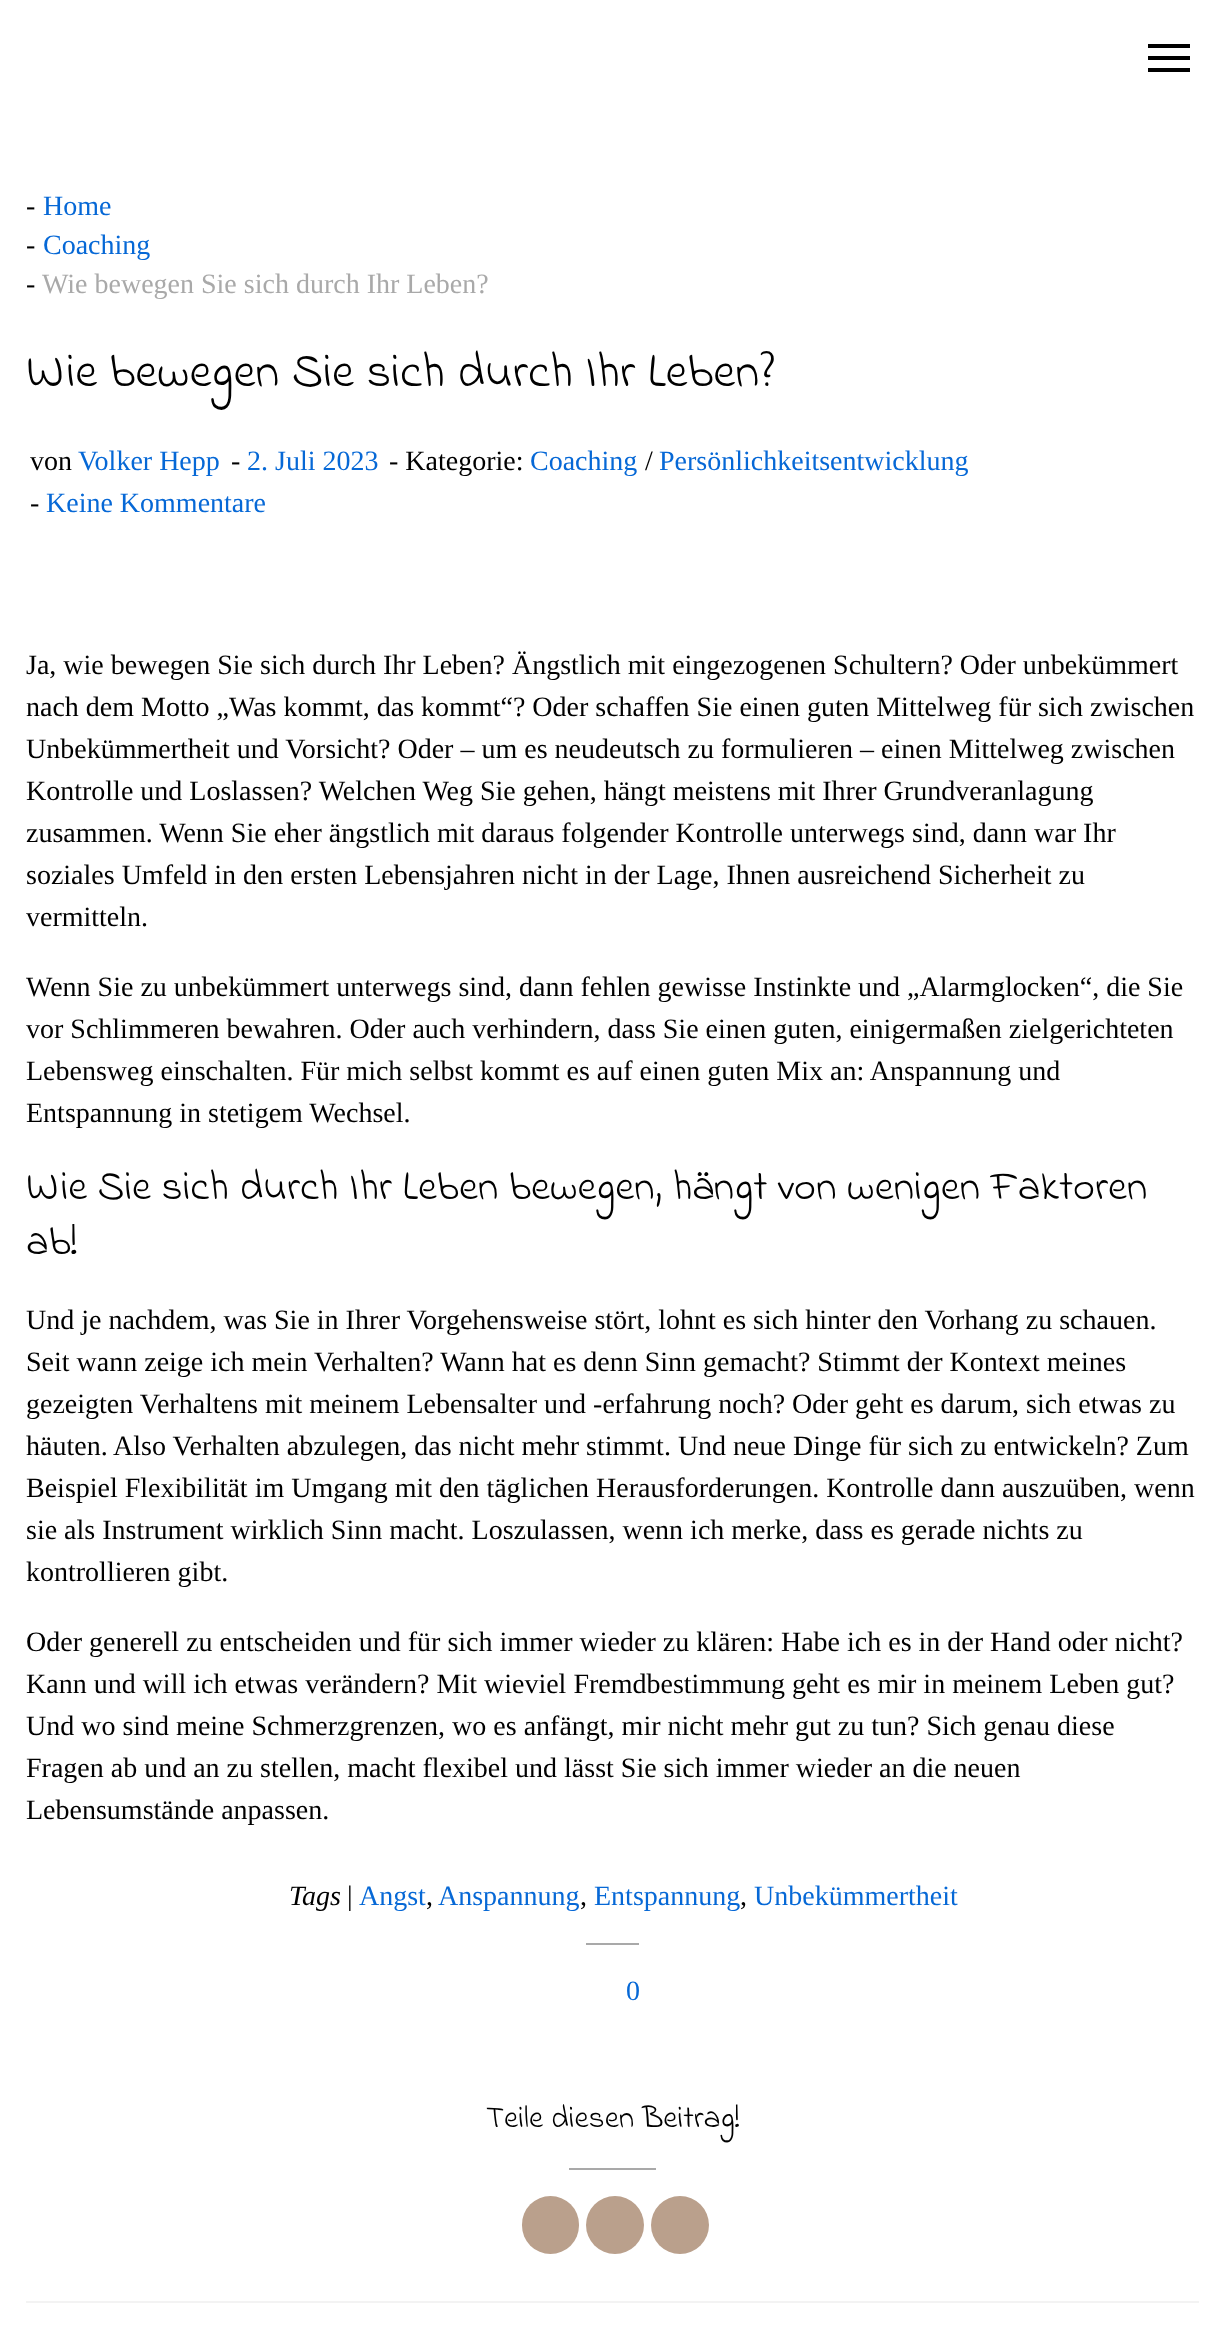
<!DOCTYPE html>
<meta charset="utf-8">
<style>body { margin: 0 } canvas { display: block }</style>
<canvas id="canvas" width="1224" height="2336"></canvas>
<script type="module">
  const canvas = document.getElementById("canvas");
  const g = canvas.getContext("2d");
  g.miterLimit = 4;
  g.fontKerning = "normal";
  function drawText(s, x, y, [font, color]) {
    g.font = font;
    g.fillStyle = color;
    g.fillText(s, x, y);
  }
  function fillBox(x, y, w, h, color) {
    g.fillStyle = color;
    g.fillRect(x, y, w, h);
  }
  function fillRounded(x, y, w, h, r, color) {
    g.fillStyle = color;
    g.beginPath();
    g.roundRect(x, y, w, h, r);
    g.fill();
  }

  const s1 = ["28px Liberation Serif", "#000000"];
  const s2 = ["28px Liberation Serif", "#0668D6"];
  const s3 = ["28px Liberation Serif", "#A9A9A9"];
  const s4 = ["49px Indie Flower", "#000000"];
  const s5 = ["42px Indie Flower", "#000000"];
  const s6 = ["italic 28px Liberation Serif", "#000000"];
  const s7 = ["31.5px Indie Flower", "#000000"];

  fillBox(0, 0, 1224, 2336, "#FFFFFF");
  fillBox(1148, 44, 42, 4, "#000000");
  fillBox(1148, 56, 42, 4, "#000000");
  fillBox(1148, 68, 42, 4, "#000000");
  drawText("-", 26, 215, s1);
  drawText("Home", 43, 215, s2);
  drawText("-", 26, 254, s1);
  drawText("Coaching", 43, 254, s2);
  drawText("-", 26, 293, s1);
  drawText("Wie bewegen Sie sich durch Ihr Leben?", 42, 293, s3);
  drawText("Wie bewegen Sie sich durch Ihr Leben?", 26, 386, s4);
  drawText("von", 30, 470, s1);
  drawText("Volker Hepp", 78, 470, s2);
  drawText("-", 231, 470, s1);
  drawText("2. Juli 2023", 247, 470, s2);
  drawText("- Kategorie:", 389, 470, s1);
  drawText("Coaching", 530, 470, s2);
  drawText("/", 645, 470, s1);
  drawText("Persönlichkeitsentwicklung", 659, 470, s2);
  drawText("-", 30, 512, s1);
  drawText("Keine Kommentare", 46, 512, s2);
  drawText("Ja, wie bewegen Sie sich durch Ihr Leben? Ängstlich mit eingezogenen Schultern? Oder unbekümmert", 26, 674, s1);
  drawText("nach dem Motto „Was kommt, das kommt“? Oder schaffen Sie einen guten Mittelweg für sich zwischen", 26, 716, s1);
  drawText("Unbekümmertheit und Vorsicht? Oder – um es neudeutsch zu formulieren – einen Mittelweg zwischen", 26, 758, s1);
  drawText("Kontrolle und Loslassen? Welchen Weg Sie gehen, hängt meistens mit Ihrer Grundveranlagung", 26, 800, s1);
  drawText("zusammen. Wenn Sie eher ängstlich mit daraus folgender Kontrolle unterwegs sind, dann war Ihr", 26, 842, s1);
  drawText("soziales Umfeld in den ersten Lebensjahren nicht in der Lage, Ihnen ausreichend Sicherheit zu", 26, 884, s1);
  drawText("vermitteln.", 26, 926, s1);
  drawText("Wenn Sie zu unbekümmert unterwegs sind, dann fehlen gewisse Instinkte und „Alarmglocken“, die Sie", 26, 996, s1);
  drawText("vor Schlimmeren bewahren. Oder auch verhindern, dass Sie einen guten, einigermaßen zielgerichteten", 26, 1038, s1);
  drawText("Lebensweg einschalten. Für mich selbst kommt es auf einen guten Mix an: Anspannung und", 26, 1080, s1);
  drawText("Entspannung in stetigem Wechsel.", 26, 1122, s1);
  drawText("Wie Sie sich durch Ihr Leben bewegen, hängt von wenigen Faktoren", 26, 1199, s5);
  drawText("ab!", 26, 1254, s5);
  drawText("Und je nachdem, was Sie in Ihrer Vorgehensweise stört, lohnt es sich hinter den Vorhang zu schauen.", 26, 1329, s1);
  drawText("Seit wann zeige ich mein Verhalten? Wann hat es denn Sinn gemacht? Stimmt der Kontext meines", 26, 1371, s1);
  drawText("gezeigten Verhaltens mit meinem Lebensalter und -erfahrung noch? Oder geht es darum, sich etwas zu", 26, 1413, s1);
  drawText("häuten. Also Verhalten abzulegen, das nicht mehr stimmt. Und neue Dinge für sich zu entwickeln? Zum", 26, 1455, s1);
  drawText("Beispiel Flexibilität im Umgang mit den täglichen Herausforderungen. Kontrolle dann auszuüben, wenn", 26, 1497, s1);
  drawText("sie als Instrument wirklich Sinn macht. Loszulassen, wenn ich merke, dass es gerade nichts zu", 26, 1539, s1);
  drawText("kontrollieren gibt.", 26, 1581, s1);
  drawText("Oder generell zu entscheiden und für sich immer wieder zu klären: Habe ich es in der Hand oder nicht?", 26, 1651, s1);
  drawText("Kann und will ich etwas verändern? Mit wieviel Fremdbestimmung geht es mir in meinem Leben gut?", 26, 1693, s1);
  drawText("Und wo sind meine Schmerzgrenzen, wo es anfängt, mir nicht mehr gut zu tun? Sich genau diese", 26, 1735, s1);
  drawText("Fragen ab und an zu stellen, macht flexibel und lässt Sie sich immer wieder an die neuen", 26, 1777, s1);
  drawText("Lebensumstände anpassen.", 26, 1819, s1);
  drawText("Tags", 289, 1905, s6);
  drawText("|", 347, 1905, s1);
  drawText("Angst", 359, 1905, s2);
  drawText(",", 426, 1905, s1);
  drawText("Anspannung", 438, 1905, s2);
  drawText(",", 580, 1905, s1);
  drawText("Entspannung", 594, 1905, s2);
  drawText(",", 740, 1905, s1);
  drawText("Unbekümmertheit", 754, 1905, s2);
  fillBox(586, 1943, 53, 2, "#A9A9A9");
  drawText("0", 626, 2000, s2);
  fillBox(26, 2301, 1173, 2, "#F3F3F3");
  drawText("Teile diesen Beitrag!", 486, 2127, s7);
  fillBox(569, 2168, 87, 2, "#A9A9A9");
  fillRounded(522, 2196, 57, 58, 28.5, "#BAA08C");
  g.beginPath();
  g.arc(615, 2225, 29, 0, Math.PI * 2);
  g.fill();
  g.beginPath();
  g.arc(680, 2225, 29, 0, Math.PI * 2);
  g.fill();
</script>
